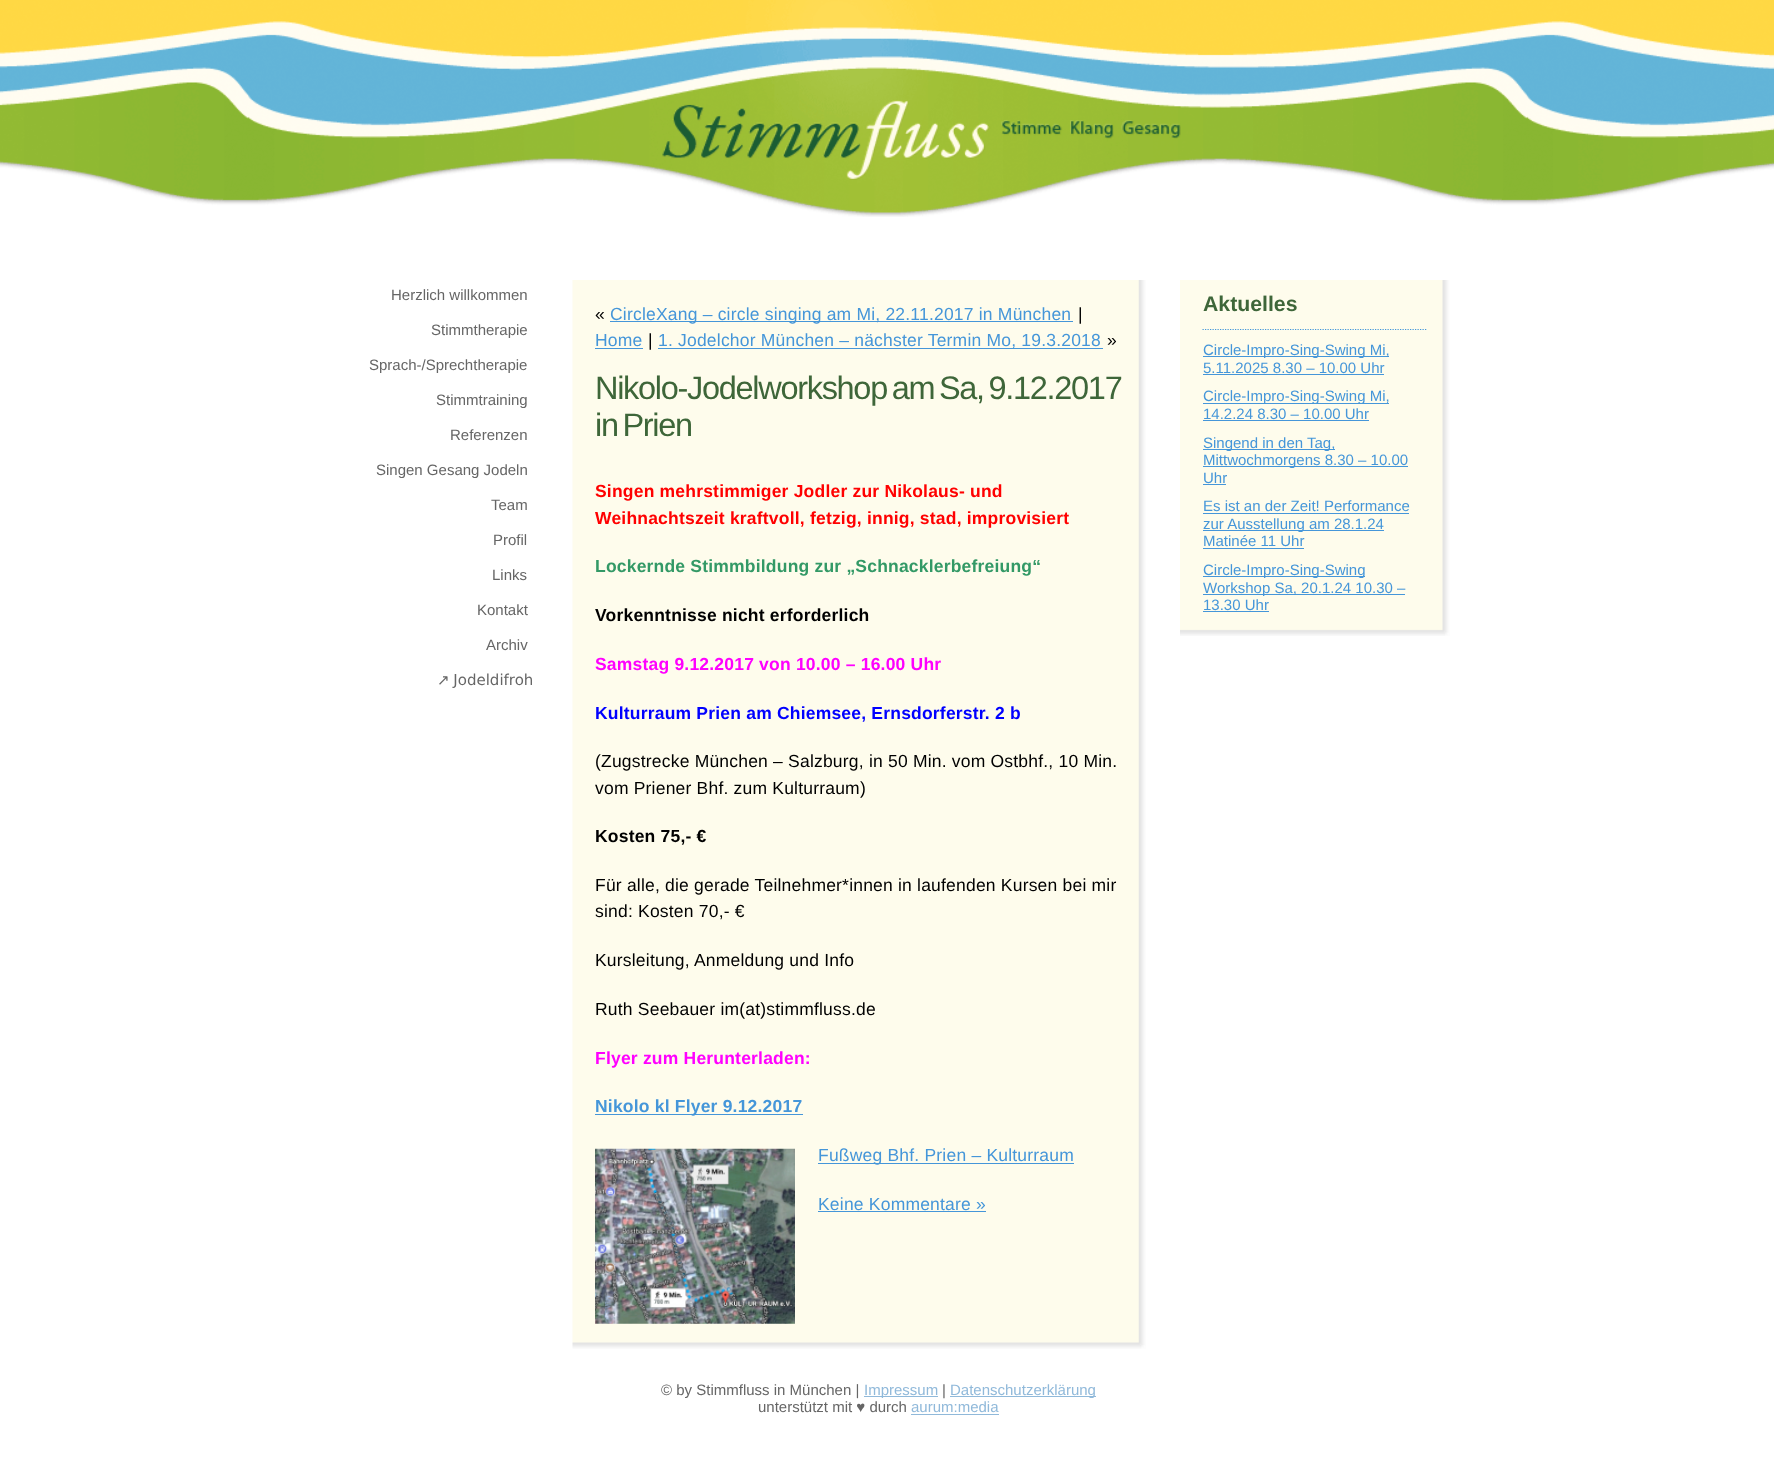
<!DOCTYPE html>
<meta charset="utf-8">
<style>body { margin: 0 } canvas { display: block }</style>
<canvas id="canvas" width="1774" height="1465"></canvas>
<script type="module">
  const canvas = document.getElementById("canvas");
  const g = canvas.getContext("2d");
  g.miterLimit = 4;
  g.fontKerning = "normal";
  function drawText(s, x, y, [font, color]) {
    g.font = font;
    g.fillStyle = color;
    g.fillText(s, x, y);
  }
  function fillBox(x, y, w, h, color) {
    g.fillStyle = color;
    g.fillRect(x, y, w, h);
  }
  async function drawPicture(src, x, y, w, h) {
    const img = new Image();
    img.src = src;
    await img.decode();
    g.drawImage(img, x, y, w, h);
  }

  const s1 = ["15px Liberation Sans", "#666666"];
  const s2 = ["15px DejaVu Sans", "#666666"];
  const s3 = ["17.5px Liberation Sans", "#000000"];
  const s4 = ["17.5px Liberation Sans", "#4596D9"];
  const s5 = ["32.5px Liberation Sans", "#3E6639"];
  const s6 = ["bold 17.5px Liberation Sans", "#FF0000"];
  const s7 = ["bold 17.5px Liberation Sans", "#339966"];
  const s8 = ["bold 17.5px Liberation Sans", "#000000"];
  const s9 = ["bold 17.5px Liberation Sans", "#FF00FF"];
  const s10 = ["bold 17.5px Liberation Sans", "#0000FF"];
  const s11 = ["bold 17.5px Liberation Sans", "#4596D9"];
  const s12 = ["bold 21.25px Liberation Sans", "#3E6639"];
  const s13 = ["15px Liberation Sans", "#4596D9"];
  const s14 = ["15px Liberation Sans", "#90B9DA"];

  fillBox(0, 0, 1774, 1465, "#FFFFFF");
  await drawPicture("pic1.png", 0, 0, 1774, 217);
  await drawPicture("pic2.png", 662, 100, 519, 80);
  drawText("Herzlich willkommen", 391, 300, s1);
  drawText("Stimmtherapie", 431, 335, s1);
  drawText("Sprach-/Sprechtherapie", 369, 370, s1);
  drawText("Stimmtraining", 436, 405, s1);
  drawText("Referenzen", 450, 440, s1);
  drawText("Singen Gesang Jodeln", 376, 475, s1);
  drawText("Team", 491, 510, s1);
  drawText("Profil", 493, 545, s1);
  drawText("Links", 492, 580, s1);
  drawText("Kontakt", 477, 615, s1);
  drawText("Archiv", 486, 650, s1);
  g.wordSpacing = "-1px";
  drawText("↗ Jodeldifroh︎", 437, 685, s2);
  await drawPicture("pic3.png", 572, 280, 574, 1069);
  g.letterSpacing = "0.2px";
  g.wordSpacing = "0px";
  drawText("«", 595, 320, s3);
  fillBox(610, 321, 463, 1, "#4596D9");
  drawText("CircleXang – circle singing am Mi, 22.11.2017 in München", 610, 320, s4);
  drawText("|", 1078, 320, s3);
  drawText("Home", 595, 346, s4);
  fillBox(595, 348, 48, 1, "#4596D9");
  drawText("|", 648, 346, s3);
  fillBox(658, 348, 445, 1, "#4596D9");
  drawText("1. Jodelchor München – nächster Termin Mo, 19.3.2018", 658, 346, s4);
  drawText("»", 1107, 346, s3);
  g.letterSpacing = "-1.3px";
  g.wordSpacing = "-3px";
  drawText("Nikolo-Jodelworkshop am Sa, 9.12.2017", 595, 399, s5);
  drawText("in Prien", 595, 436, s5);
  g.letterSpacing = "0.2px";
  g.wordSpacing = "0px";
  drawText("Singen mehrstimmiger Jodler zur Nikolaus- und", 595, 497, s6);
  drawText("Weihnachtszeit kraftvoll, fetzig, innig, stad, improvisiert", 595, 524, s6);
  drawText("Lockernde Stimmbildung zur „Schnacklerbefreiung“", 595, 572, s7);
  drawText("Vorkenntnisse nicht erforderlich", 595, 621, s8);
  drawText("Samstag 9.12.2017 von 10.00 – 16.00 Uhr", 595, 670, s9);
  drawText("Kulturraum Prien am Chiemsee, Ernsdorferstr. 2 b", 595, 719, s10);
  drawText("(Zugstrecke München – Salzburg, in 50 Min. vom Ostbhf., 10 Min.", 595, 767, s3);
  drawText("vom Priener Bhf. zum Kulturraum)", 595, 794, s3);
  drawText("Kosten 75,- €", 595, 842, s8);
  drawText("Für alle, die gerade Teilnehmer*innen in laufenden Kursen bei mir", 595, 891, s3);
  drawText("sind: Kosten 70,- €", 595, 917, s3);
  drawText("Kursleitung, Anmeldung und Info", 595, 966, s3);
  drawText("Ruth Seebauer im(at)stimmfluss.de", 595, 1015, s3);
  drawText("Flyer zum Herunterladen:", 595, 1064, s9);
  fillBox(595, 1114, 208, 1, "#4596D9");
  drawText("Nikolo kl Flyer 9.12.2017", 595, 1112, s11);
  await drawPicture("pic4.png", 595, 1148, 200, 176);
  fillBox(818, 1163, 256, 1, "#4596D9");
  drawText("Fußweg Bhf. Prien – Kulturraum", 818, 1161, s4);
  drawText("Keine Kommentare »", 818, 1210, s4);
  fillBox(818, 1211, 168, 1, "#4596D9");
  await drawPicture("pic5.png", 1180, 280, 270, 356);
  g.beginPath();
  g.moveTo(1202.5, 329.5);
  g.lineTo(1427.5, 329.5);
  g.strokeStyle = "#4596D9";
  g.lineWidth = 1.2;
  g.setLineDash([1.25, 1.25]);
  g.stroke();
  g.letterSpacing = "0px";
  drawText("Aktuelles", 1203, 311, s12);
  fillBox(1203, 356, 186, 1, "#4596D9");
  drawText("Circle-Impro-Sing-Swing Mi,", 1203, 355, s13);
  drawText("5.11.2025 8.30 – 10.00 Uhr", 1203, 373, s13);
  fillBox(1203, 374, 181, 1, "#4596D9");
  fillBox(1203, 403, 186, 1, "#4596D9");
  drawText("Circle-Impro-Sing-Swing Mi,", 1203, 401, s13);
  drawText("14.2.24 8.30 – 10.00 Uhr", 1203, 419, s13);
  fillBox(1203, 420, 166, 1, "#4596D9");
  fillBox(1203, 449, 132, 1, "#4596D9");
  drawText("Singend in den Tag,", 1203, 448, s13);
  fillBox(1203, 466, 205, 1, "#4596D9");
  drawText("Mittwochmorgens 8.30 – 10.00", 1203, 465, s13);
  drawText("Uhr", 1203, 483, s13);
  fillBox(1203, 484, 23, 1, "#4596D9");
  drawText("Es ist an der Zeit! Performance", 1203, 511, s13);
  fillBox(1203, 513, 206, 1, "#4596D9");
  fillBox(1203, 530, 181, 1, "#4596D9");
  drawText("zur Ausstellung am 28.1.24", 1203, 529, s13);
  drawText("Matinée 11 Uhr", 1203, 546, s13);
  fillBox(1203, 548, 101, 1, "#4596D9");
  fillBox(1203, 576, 162, 1, "#4596D9");
  drawText("Circle-Impro-Sing-Swing", 1203, 575, s13);
  fillBox(1203, 594, 202, 1, "#4596D9");
  drawText("Workshop Sa, 20.1.24 10.30 –", 1203, 593, s13);
  drawText("13.30 Uhr", 1203, 610, s13);
  fillBox(1203, 611, 66, 1, "#4596D9");
  drawText("© by Stimmfluss in München |", 661, 1395, s1);
  fillBox(864, 1396, 74, 1, "#90B9DA");
  drawText("Impressum", 864, 1395, s14);
  drawText("|", 942, 1395, s1);
  fillBox(950, 1396, 146, 1, "#90B9DA");
  drawText("Datenschutzerklärung", 950, 1395, s14);
  drawText("unterstützt mit ♥ durch", 758, 1412, s1);
  drawText("aurum:media", 911, 1412, s14);
  fillBox(911, 1414, 88, 1, "#90B9DA");
</script>
